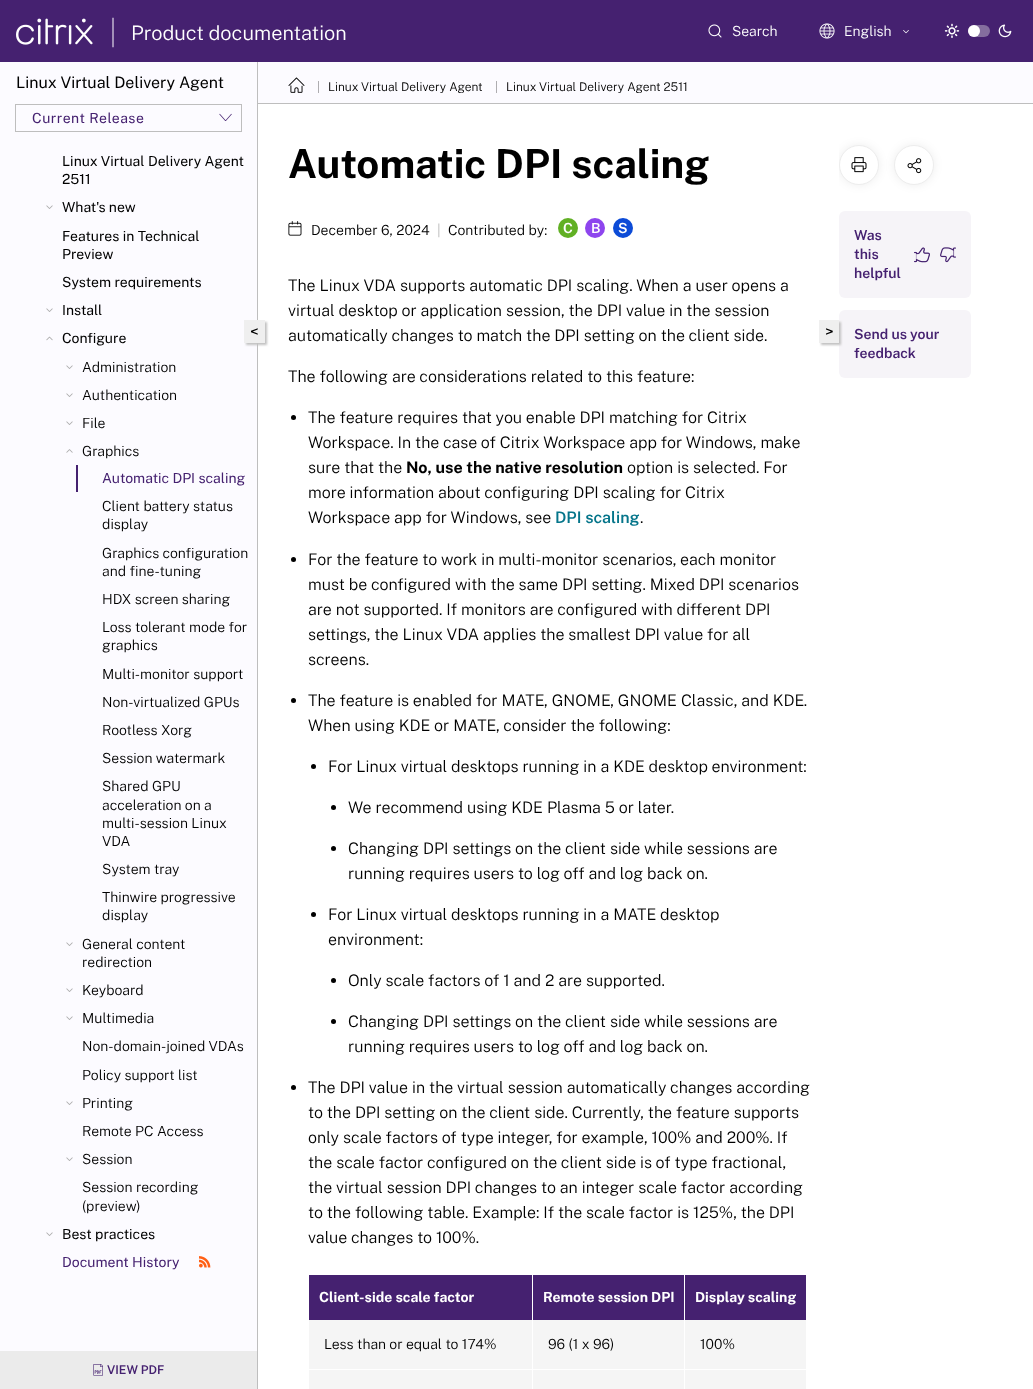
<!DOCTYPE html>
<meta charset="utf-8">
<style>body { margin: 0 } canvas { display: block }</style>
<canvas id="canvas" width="1033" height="1389"></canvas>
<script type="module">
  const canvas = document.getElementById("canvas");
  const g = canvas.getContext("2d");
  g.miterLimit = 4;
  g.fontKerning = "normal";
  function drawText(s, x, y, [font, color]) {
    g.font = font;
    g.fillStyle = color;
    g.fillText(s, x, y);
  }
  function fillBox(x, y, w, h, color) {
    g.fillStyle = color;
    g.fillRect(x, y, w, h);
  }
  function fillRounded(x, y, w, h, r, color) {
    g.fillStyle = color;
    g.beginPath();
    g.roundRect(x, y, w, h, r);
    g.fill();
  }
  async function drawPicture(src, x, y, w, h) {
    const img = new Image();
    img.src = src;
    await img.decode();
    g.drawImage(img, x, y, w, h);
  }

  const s1 = ["300 20px Public Sans", "#FFFFFF"];
  const s2 = ["300 14px Public Sans", "#FFFFFF"];
  const s3 = ["16px Public Sans", "#000000"];
  const s4 = ["14px Public Sans", "#452170"];
  const s5 = ["14px Public Sans", "#000000"];
  const s6 = ["300 14px Public Sans", "#000000"];
  const s7 = ["600 12px Public Sans", "#452170"];
  const s8 = ["300 12px Public Sans", "#979799"];
  const s9 = ["300 12px Public Sans", "#000000"];
  const s10 = ["bold 40px Public Sans", "#000000"];
  const s11 = ["300 14px Public Sans", "#BEBEBE"];
  const s12 = ["600 14px Public Sans", "#FFFFFF"];
  const s13 = ["300 16px Public Sans", "#000000"];
  const s14 = ["bold 16px Public Sans", "#000000"];
  const s15 = ["600 16px Public Sans", "#05758A"];
  const s16 = ["bold 14px Public Sans", "#FFFFFF"];
  const s17 = ["600 14px Public Sans", "#452170"];

  fillBox(0, 0, 1033, 1389, "#FFFFFF");
  fillBox(0, 0, 1033, 62, "#452170");
  await drawPicture("pic1.png", 16, 18, 77, 27);
  g.fillStyle = "#FFFFFF";
  g.beginPath();
  g.moveTo(113, 17.5);
  g.lineTo(112.5, 18);
  g.lineTo(112.5, 47);
  g.lineTo(113, 47.5);
  g.lineTo(113.5, 47);
  g.lineTo(113.5, 18);
  g.closePath();
  g.fill();
  drawText("Product documentation", 131, 40, s1);
  await drawPicture("pic2.png", 708, 24, 14, 14);
  drawText("Search", 732, 36, s2);
  await drawPicture("pic3.png", 819, 23, 16, 16);
  drawText("English", 844, 36, s2);
  await drawPicture("pic4.png", 903, 30, 6, 4);
  await drawPicture("pic5.png", 944, 23, 16, 15);
  fillRounded(968, 25, 22, 12, 6, "#846E9E");
  g.fillStyle = "#FFFFFF";
  g.beginPath();
  g.arc(974, 31, 6, 0, Math.PI * 2);
  g.fill();
  await drawPicture("pic6.png", 998, 24, 14, 14);
  fillBox(0, 62, 257, 1289, "#FCFBFF");
  fillBox(257, 62, 1, 1327, "#BEBEBE");
  drawText("Linux Virtual Delivery Agent", 16, 88, s3);
  g.strokeStyle = "#BEBEBE";
  g.strokeRect(15.5, 104.5, 226, 27);
  g.letterSpacing = "0.5px";
  drawText("Current Release", 32, 123, s4);
  await drawPicture("pic7.png", 219, 113, 13, 8);
  g.letterSpacing = "0px";
  drawText("Linux Virtual Delivery Agent", 62, 166, s5);
  drawText("2511", 62, 184, s5);
  await drawPicture("pic8.png", 46, 205, 7, 4);
  drawText("What's new", 62, 212, s5);
  drawText("Features in Technical", 62, 241, s5);
  drawText("Preview", 62, 259, s5);
  drawText("System requirements", 62, 287, s5);
  await drawPicture("pic8.png", 46, 308, 7, 4);
  drawText("Install", 62, 315, s5);
  await drawPicture("pic9.png", 46, 336, 7, 5);
  drawText("Configure", 62, 343, s5);
  await drawPicture("pic8.png", 66, 365, 7, 4);
  drawText("Administration", 82, 372, s6);
  await drawPicture("pic8.png", 66, 393, 7, 4);
  drawText("Authentication", 82, 400, s6);
  await drawPicture("pic8.png", 66, 421, 7, 4);
  drawText("File", 82, 428, s6);
  await drawPicture("pic10.png", 66, 449, 7, 4);
  drawText("Graphics", 82, 456, s6);
  fillBox(76, 465, 2, 27, "#452170");
  drawText("Automatic DPI scaling", 102, 483, s4);
  drawText("Client battery status", 102, 511, s6);
  drawText("display", 102, 529, s6);
  drawText("Graphics configuration", 102, 558, s6);
  drawText("and fine-tuning", 102, 576, s6);
  drawText("HDX screen sharing", 102, 604, s6);
  drawText("Loss tolerant mode for", 102, 632, s6);
  drawText("graphics", 102, 650, s6);
  drawText("Multi-monitor support", 102, 679, s6);
  drawText("Non-virtualized GPUs", 102, 707, s6);
  drawText("Rootless Xorg", 102, 735, s6);
  drawText("Session watermark", 102, 763, s6);
  drawText("Shared GPU", 102, 791, s6);
  drawText("acceleration on a", 102, 810, s6);
  drawText("multi-session Linux", 102, 828, s6);
  drawText("VDA", 102, 846, s6);
  drawText("System tray", 102, 874, s6);
  drawText("Thinwire progressive", 102, 902, s6);
  drawText("display", 102, 920, s6);
  await drawPicture("pic8.png", 66, 942, 7, 4);
  drawText("General content", 82, 949, s6);
  drawText("redirection", 82, 967, s6);
  await drawPicture("pic8.png", 66, 988, 7, 4);
  drawText("Keyboard", 82, 995, s6);
  await drawPicture("pic8.png", 66, 1016, 7, 4);
  drawText("Multimedia", 82, 1023, s6);
  drawText("Non-domain-joined VDAs", 82, 1051, s6);
  drawText("Policy support list", 82, 1080, s6);
  await drawPicture("pic8.png", 66, 1101, 7, 4);
  drawText("Printing", 82, 1108, s6);
  drawText("Remote PC Access", 82, 1136, s6);
  await drawPicture("pic8.png", 66, 1157, 7, 4);
  drawText("Session", 82, 1164, s6);
  drawText("Session recording", 82, 1192, s6);
  drawText("(preview)", 82, 1211, s6);
  await drawPicture("pic8.png", 46, 1232, 7, 4);
  drawText("Best practices", 62, 1239, s5);
  drawText("Document History", 62, 1267, s4);
  await drawPicture("pic11.png", 199, 1256, 12, 12);
  fillBox(0, 1351, 257, 38, "#EBEBEB");
  await drawPicture("pic12.png", 93, 1364, 10, 12);
  drawText("VIEW PDF", 107, 1374, s7);
  fillBox(258, 62, 775, 41, "#FCFBFF");
  fillBox(258, 103, 775, 1, "#BEBEBE");
  await drawPicture("pic13.png", 288, 77, 17, 16);
  drawText("|", 317, 91, s8);
  drawText("Linux Virtual Delivery Agent", 328, 91, s9);
  drawText("|", 495, 91, s8);
  drawText("Linux Virtual Delivery Agent 2511", 506, 91, s9);
  g.fillStyle = "#C1C1C1";
  g.filter = "blur(1px)";
  g.beginPath();
  g.rect(246, 322, 21, 23);
  g.fill();
  g.filter = "none";
  fillBox(244, 320, 21, 23, "#EFEFEF");
  drawText("<", 250, 337, s3);
  drawText("Automatic DPI scaling", 288, 178, s10);
  await drawPicture("pic14.png", 288, 221, 14, 15);
  drawText("December 6, 2024", 311, 235, s6);
  drawText("|", 437, 235, s11);
  drawText("Contributed by:", 448, 235, s6);
  g.fillStyle = "#61B024";
  g.beginPath();
  g.arc(568, 228, 10, 0, Math.PI * 2);
  g.fill();
  drawText("C", 563, 233, s12);
  g.fillStyle = "#8E45EE";
  g.beginPath();
  g.arc(595, 228, 10, 0, Math.PI * 2);
  g.fill();
  drawText("B", 591, 233, s12);
  g.fillStyle = "#0C4BD7";
  g.beginPath();
  g.arc(623, 228, 10, 0, Math.PI * 2);
  g.fill();
  drawText("S", 618, 233, s12);
  drawText("The Linux VDA supports automatic DPI scaling. When a user opens a", 288, 291, s13);
  drawText("virtual desktop or application session, the DPI value in the session", 288, 316, s13);
  drawText("automatically changes to match the DPI setting on the client side.", 288, 341, s13);
  drawText("The following are considerations related to this feature:", 288, 382, s13);
  g.beginPath();
  g.arc(293.5, 417.5, 2.5, 0, Math.PI * 2);
  g.fill();
  drawText("The feature requires that you enable DPI matching for Citrix", 308, 423, s13);
  drawText("Workspace. In the case of Citrix Workspace app for Windows, make", 308, 448, s13);
  drawText("sure that the", 308, 473, s13);
  drawText("No, use the native resolution", 406, 473, s14);
  drawText("option is selected. For", 627, 473, s13);
  drawText("more information about configuring DPI scaling for Citrix", 308, 498, s13);
  drawText("Workspace app for Windows, see", 308, 523, s13);
  drawText("DPI scaling", 555, 523, s15);
  drawText(".", 640, 523, s13);
  g.beginPath();
  g.arc(293.5, 559.5, 2.5, 0, Math.PI * 2);
  g.fill();
  drawText("For the feature to work in multi-monitor scenarios, each monitor", 308, 565, s13);
  drawText("must be configured with the same DPI setting. Mixed DPI scenarios", 308, 590, s13);
  drawText("are not supported. If monitors are configured with different DPI", 308, 615, s13);
  drawText("settings, the Linux VDA applies the smallest DPI value for all", 308, 640, s13);
  drawText("screens.", 308, 665, s13);
  g.beginPath();
  g.arc(293.5, 700.5, 2.5, 0, Math.PI * 2);
  g.fill();
  drawText("The feature is enabled for MATE, GNOME, GNOME Classic, and KDE.", 308, 706, s13);
  drawText("When using KDE or MATE, consider the following:", 308, 731, s13);
  g.beginPath();
  g.arc(313.5, 766.5, 2.5, 0, Math.PI * 2);
  g.fill();
  drawText("For Linux virtual desktops running in a KDE desktop environment:", 328, 772, s13);
  g.beginPath();
  g.arc(333.5, 807.5, 2.5, 0, Math.PI * 2);
  g.fill();
  drawText("We recommend using KDE Plasma 5 or later.", 348, 813, s13);
  g.beginPath();
  g.arc(333.5, 848.5, 2.5, 0, Math.PI * 2);
  g.fill();
  drawText("Changing DPI settings on the client side while sessions are", 348, 854, s13);
  drawText("running requires users to log off and log back on.", 348, 879, s13);
  g.beginPath();
  g.arc(313.5, 914.5, 2.5, 0, Math.PI * 2);
  g.fill();
  drawText("For Linux virtual desktops running in a MATE desktop", 328, 920, s13);
  drawText("environment:", 328, 945, s13);
  g.beginPath();
  g.arc(333.5, 980.5, 2.5, 0, Math.PI * 2);
  g.fill();
  drawText("Only scale factors of 1 and 2 are supported.", 348, 986, s13);
  g.beginPath();
  g.arc(333.5, 1021.5, 2.5, 0, Math.PI * 2);
  g.fill();
  drawText("Changing DPI settings on the client side while sessions are", 348, 1027, s13);
  drawText("running requires users to log off and log back on.", 348, 1052, s13);
  g.beginPath();
  g.arc(293.5, 1087.5, 2.5, 0, Math.PI * 2);
  g.fill();
  drawText("The DPI value in the virtual session automatically changes according", 308, 1093, s13);
  drawText("to the DPI setting on the client side. Currently, the feature supports", 308, 1118, s13);
  drawText("only scale factors of type integer, for example, 100% and 200%. If", 308, 1143, s13);
  drawText("the scale factor configured on the client side is of type fractional,", 308, 1168, s13);
  drawText("the virtual session DPI changes to an integer scale factor according", 308, 1193, s13);
  drawText("to the following table. Example: If the scale factor is 125%, the DPI", 308, 1218, s13);
  drawText("value changes to 100%.", 308, 1243, s13);
  fillBox(309, 1275, 497, 45, "#452170");
  drawText("Client-side scale factor", 319, 1302, s16);
  drawText("Remote session DPI", 543, 1302, s16);
  drawText("Display scaling", 695, 1302, s16);
  fillBox(309, 1370, 497, 19, "#F5F5F5");
  fillBox(309, 1320, 497, 49, "#F5F5F5");
  fillBox(532, 1274, 1, 115, "#FFFFFF");
  fillBox(684, 1274, 1, 115, "#FFFFFF");
  drawText("Less than or equal to 174%", 324, 1349, s6);
  drawText("96 (1 x 96)", 548, 1349, s6);
  drawText("100%", 700, 1349, s6);
  fillRounded(839, 310, 132, 68, 6, "#F6F4F8");
  g.fillStyle = "#C1C1C1";
  g.filter = "blur(1px)";
  g.beginPath();
  g.rect(821, 322, 20, 23);
  g.fill();
  g.filter = "none";
  fillBox(819, 320, 20, 23, "#EFEFEF");
  drawText(">", 825, 337, s3);
  g.save();
  g.beginPath();
  g.rect(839, 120, 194, 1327);
  g.clip();
  g.fillStyle = "rgba(0, 0, 0, 0.07)";
  g.filter = "blur(5px)";
  g.beginPath();
  g.roundRect(839, 145, 40, 40, 20);
  g.fill();
  g.filter = "none";
  g.restore();
  g.fillStyle = "#FFFFFF";
  g.beginPath();
  g.arc(859, 165, 19.5, 0, Math.PI * 2);
  g.fill();
  g.strokeStyle = "#EDEDED";
  g.stroke();
  await drawPicture("pic15.png", 851, 157, 16, 16);
  g.fillStyle = "rgba(0, 0, 0, 0.07)";
  g.filter = "blur(5px)";
  g.beginPath();
  g.roundRect(894, 145, 40, 40, 20);
  g.fill();
  g.filter = "none";
  g.fillStyle = "#FFFFFF";
  g.beginPath();
  g.arc(914, 165, 19.5, 0, Math.PI * 2);
  g.fill();
  g.stroke();
  await drawPicture("pic16.png", 907, 158, 15, 16);
  fillRounded(839, 211, 132, 87, 6, "#F6F4F8");
  drawText("Was", 854, 240, s17);
  drawText("this", 854, 259, s17);
  drawText("helpful", 854, 278, s17);
  await drawPicture("pic17.png", 914, 247, 16, 16);
  await drawPicture("pic18.png", 940, 247, 16, 16);
  drawText("Send us your", 854, 339, s17);
  drawText("feedback", 854, 358, s17);
</script>
